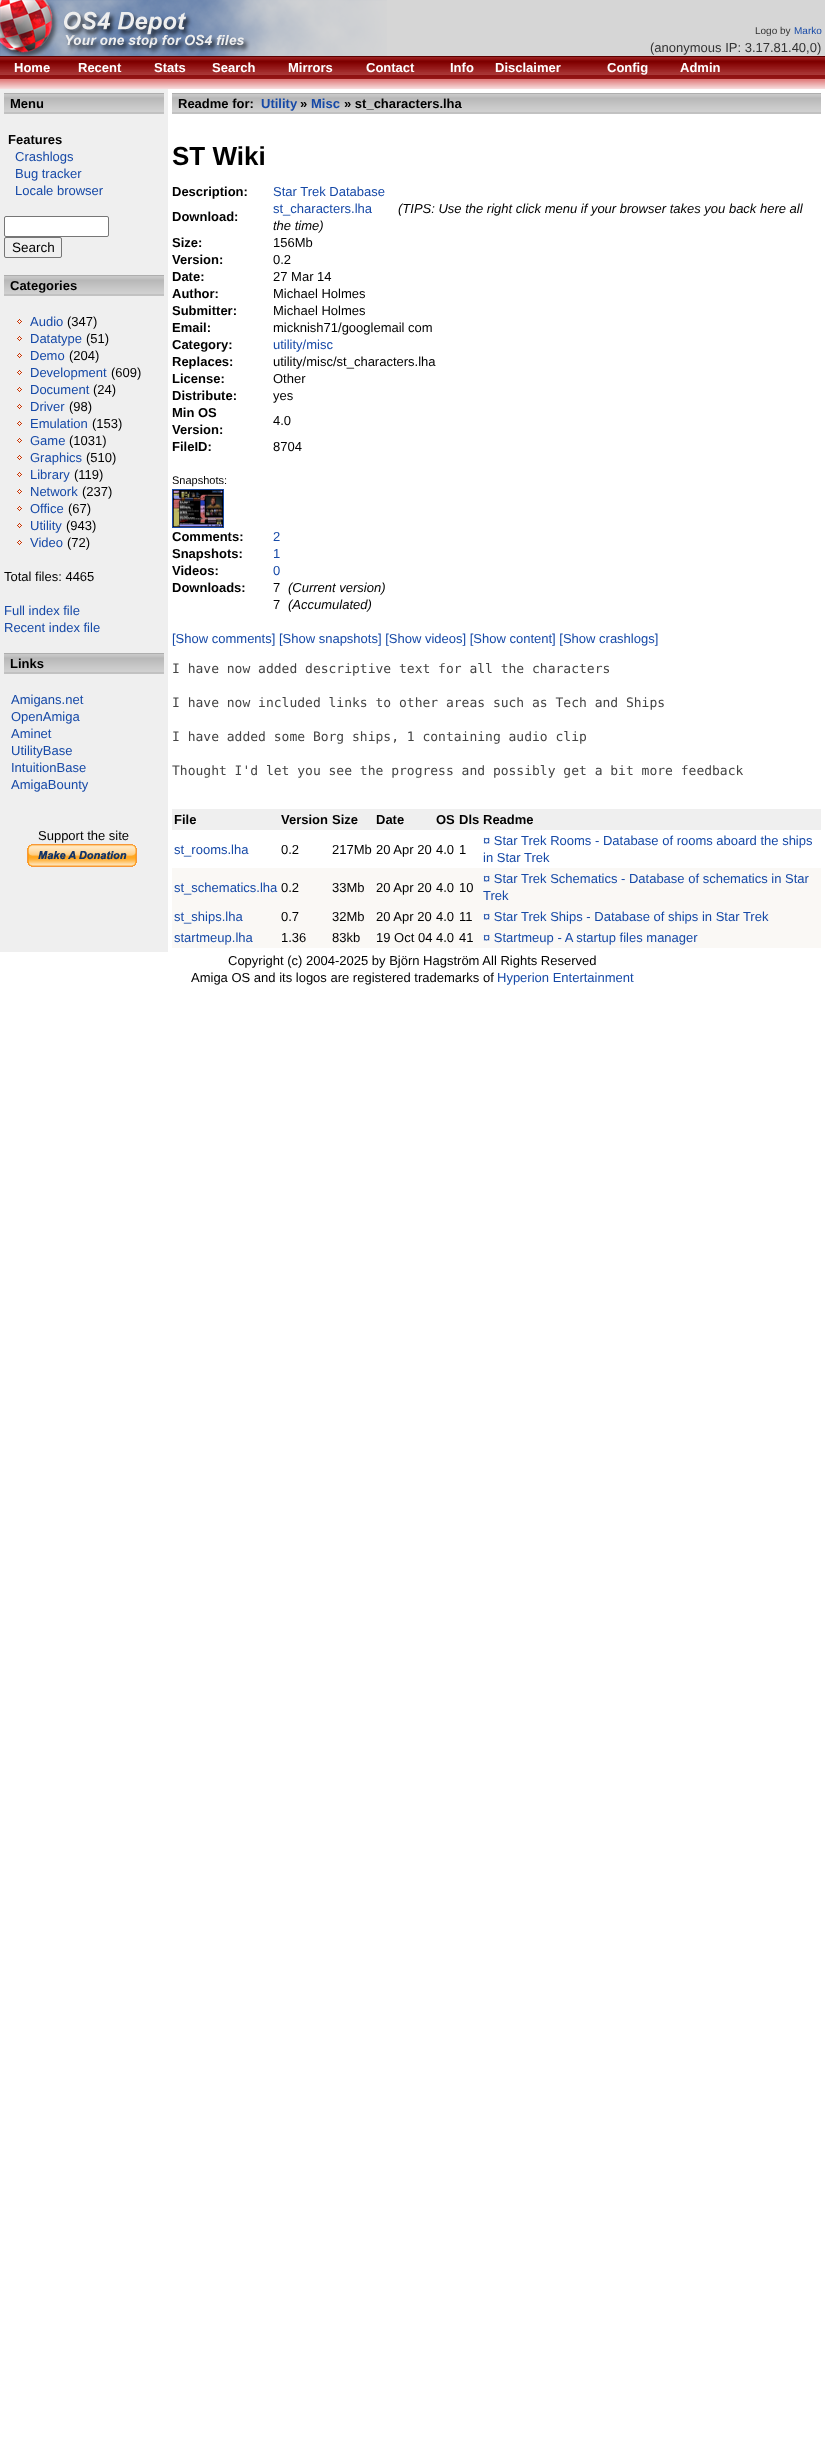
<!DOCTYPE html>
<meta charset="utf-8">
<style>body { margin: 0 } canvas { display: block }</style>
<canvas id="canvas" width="825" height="2456"></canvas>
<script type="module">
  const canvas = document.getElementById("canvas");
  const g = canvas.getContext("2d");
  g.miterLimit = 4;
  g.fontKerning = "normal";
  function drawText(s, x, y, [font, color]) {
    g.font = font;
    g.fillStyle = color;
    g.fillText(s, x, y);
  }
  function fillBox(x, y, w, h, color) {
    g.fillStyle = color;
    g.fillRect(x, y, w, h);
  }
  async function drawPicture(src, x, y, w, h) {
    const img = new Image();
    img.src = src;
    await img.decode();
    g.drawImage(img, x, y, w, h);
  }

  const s1 = ["10px Liberation Sans", "#333333"];
  const s2 = ["10px Liberation Sans", "#1649A7"];
  const s3 = ["13px Liberation Sans", "#333333"];
  const s4 = ["bold 13px Liberation Sans", "#FFFFFF"];
  const s5 = ["bold 13px Liberation Sans", "#000000"];
  const s6 = ["13px Liberation Sans", "#1649A7"];
  const s7 = ["13.5px Liberation Sans", "#000000"];
  const s8 = ["13px Liberation Sans", "#000000"];
  const s9 = ["bold 13px Liberation Sans", "#1649A7"];
  const s10 = ["bold 26px Liberation Sans", "#000000"];
  const s11 = ["italic 13px Liberation Sans", "#000000"];
  const s12 = ["11px Liberation Sans", "#000000"];
  const s13 = ["13px DejaVu Sans Mono", "#444444"];

  fillBox(0, 0, 825, 2456, "#FFFFFF");
  fillBox(387, 0, 438, 56, "#D6D6D6");
  await drawPicture("pic1.png", 0, 0, 387, 56);
  drawText("Logo by", 755, 34, s1);
  drawText("Marko", 794, 34, s2);
  drawText("(anonymous IP: 3.17.81.40,0)", 650, 52, s3);
  await drawPicture("pic2.png", 0, 56, 825, 23);
  drawText("Home", 14, 72, s4);
  drawText("Recent", 78, 72, s4);
  drawText("Stats", 154, 72, s4);
  drawText("Search", 212, 72, s4);
  drawText("Mirrors", 288, 72, s4);
  drawText("Contact", 366, 72, s4);
  drawText("Info", 450, 72, s4);
  drawText("Disclaimer", 495, 72, s4);
  drawText("Config", 607, 72, s4);
  drawText("Admin", 680, 72, s4);
  fillBox(0, 79, 825, 1, "#E18080");
  await drawPicture("pic3.png", 0, 80, 825, 9);
  fillBox(0, 89, 168, 863, "#EFEFEF");
  await drawPicture("pic4.png", 4, 93, 160, 21);
  drawText("Menu", 10, 108, s5);
  drawText("Features", 8, 144, s5);
  drawText("Crashlogs", 15, 161, s6);
  drawText("Bug tracker", 15, 178, s6);
  drawText("Locale browser", 15, 195, s6);
  g.fillStyle = "#FFFFFF";
  g.beginPath();
  g.roundRect(4.5, 216.5, 104, 20, 1.5);
  g.fill();
  g.strokeStyle = "#767676";
  g.stroke();
  g.beginPath();
  g.roundRect(4.5, 237.5, 57, 20, 1.5);
  g.stroke();
  drawText("Search", 12, 252, s7);
  await drawPicture("pic4.png", 4, 275, 160, 21);
  drawText("Categories", 10, 290, s5);
  await drawPicture("pic5.png", 17, 319, 5, 5);
  drawText("Audio", 30, 326, s6);
  drawText("(347)", 67, 326, s8);
  await drawPicture("pic5.png", 17, 336, 5, 5);
  drawText("Datatype", 30, 343, s6);
  drawText("(51)", 86, 343, s8);
  await drawPicture("pic5.png", 17, 353, 5, 5);
  drawText("Demo", 30, 360, s6);
  drawText("(204)", 69, 360, s8);
  await drawPicture("pic5.png", 17, 370, 5, 5);
  drawText("Development", 30, 377, s6);
  drawText("(609)", 111, 377, s8);
  await drawPicture("pic5.png", 17, 387, 5, 5);
  drawText("Document", 30, 394, s6);
  drawText("(24)", 93, 394, s8);
  await drawPicture("pic5.png", 17, 404, 5, 5);
  drawText("Driver", 30, 411, s6);
  drawText("(98)", 69, 411, s8);
  await drawPicture("pic5.png", 17, 421, 5, 5);
  drawText("Emulation", 30, 428, s6);
  drawText("(153)", 92, 428, s8);
  await drawPicture("pic5.png", 17, 438, 5, 5);
  drawText("Game", 30, 445, s6);
  drawText("(1031)", 69, 445, s8);
  await drawPicture("pic5.png", 17, 455, 5, 5);
  drawText("Graphics", 30, 462, s6);
  drawText("(510)", 86, 462, s8);
  await drawPicture("pic5.png", 17, 472, 5, 5);
  drawText("Library", 30, 479, s6);
  drawText("(119)", 74, 479, s8);
  await drawPicture("pic5.png", 17, 489, 5, 5);
  drawText("Network", 30, 496, s6);
  drawText("(237)", 82, 496, s8);
  await drawPicture("pic5.png", 17, 506, 5, 5);
  drawText("Office", 30, 513, s6);
  drawText("(67)", 68, 513, s8);
  await drawPicture("pic5.png", 17, 523, 5, 5);
  drawText("Utility", 30, 530, s6);
  drawText("(943)", 66, 530, s8);
  await drawPicture("pic5.png", 17, 540, 5, 5);
  drawText("Video", 30, 547, s6);
  drawText("(72)", 67, 547, s8);
  drawText("Total files: 4465", 4, 581, s8);
  drawText("Full index file", 4, 615, s6);
  drawText("Recent index file", 4, 632, s6);
  await drawPicture("pic4.png", 4, 653, 160, 21);
  drawText("Links", 10, 668, s5);
  drawText("Amigans.net", 11, 704, s6);
  drawText("OpenAmiga", 11, 721, s6);
  drawText("Aminet", 11, 738, s6);
  drawText("UtilityBase", 11, 755, s6);
  drawText("IntuitionBase", 11, 772, s6);
  drawText("AmigaBounty", 11, 789, s6);
  drawText("Support the site", 38, 840, s8);
  await drawPicture("pic6.png", 27, 844, 110, 23);
  await drawPicture("pic7.png", 172, 93, 649, 21);
  drawText("Readme for:", 178, 108, s5);
  drawText("Utility", 261, 108, s9);
  drawText("»", 300, 108, s5);
  drawText("Misc", 311, 108, s9);
  drawText("» st_characters.lha", 344, 108, s5);
  drawText("ST Wiki", 172, 165, s10);
  drawText("Description:", 172, 196, s5);
  drawText("Star Trek Database", 273, 196, s6);
  drawText("Download:", 172, 221, s5);
  drawText("st_characters.lha", 273, 213, s6);
  drawText("(TIPS: Use the right click menu if your browser takes you back here all", 398, 213, s11);
  drawText("the time)", 273, 230, s11);
  drawText("Size:", 172, 247, s5);
  drawText("156Mb", 273, 247, s8);
  drawText("Version:", 172, 264, s5);
  drawText("0.2", 273, 264, s8);
  drawText("Date:", 172, 281, s5);
  drawText("27 Mar 14", 273, 281, s8);
  drawText("Author:", 172, 298, s5);
  drawText("Michael Holmes", 273, 298, s8);
  drawText("Submitter:", 172, 315, s5);
  drawText("Michael Holmes", 273, 315, s8);
  drawText("Email:", 172, 332, s5);
  drawText("micknish71/googlemail com", 273, 332, s8);
  drawText("Category:", 172, 349, s5);
  drawText("utility/misc", 273, 349, s6);
  drawText("Replaces:", 172, 366, s5);
  drawText("utility/misc/st_characters.lha", 273, 366, s8);
  drawText("License:", 172, 383, s5);
  drawText("Other", 273, 383, s8);
  drawText("Distribute:", 172, 400, s5);
  drawText("yes", 273, 400, s8);
  drawText("Min OS", 172, 417, s5);
  drawText("Version:", 172, 434, s5);
  drawText("4.0", 273, 425, s8);
  drawText("FileID:", 172, 451, s5);
  drawText("8704", 273, 451, s8);
  drawText("Snapshots:", 172, 484, s12);
  g.strokeStyle = "#1649A7";
  g.strokeRect(172.5, 489.5, 51, 38);
  await drawPicture("pic8.png", 173, 490, 50, 37);
  drawText("Comments:", 172, 541, s5);
  drawText("2", 273, 541, s6);
  drawText("Snapshots:", 172, 558, s5);
  drawText("1", 273, 558, s6);
  drawText("Videos:", 172, 575, s5);
  drawText("0", 273, 575, s6);
  drawText("Downloads:", 172, 592, s5);
  drawText("7", 273, 592, s8);
  drawText("(Current version)", 288, 592, s11);
  drawText("7", 273, 609, s8);
  drawText("(Accumulated)", 288, 609, s11);
  drawText("[Show comments] [Show snapshots] [Show videos] [Show content] [Show crashlogs]", 172, 643, s6);
  drawText("I have now added descriptive text for all the characters", 172, 673, s13);
  drawText("I have now included links to other areas such as Tech and Ships", 172, 707, s13);
  drawText("I have added some Borg ships, 1 containing audio clip", 172, 741, s13);
  drawText("Thought I'd let you see the progress and possibly get a bit more feedback", 172, 775, s13);
  fillBox(172, 809, 649, 21, "#EFEFEF");
  drawText("File", 174, 824, s5);
  drawText("Version", 281, 824, s5);
  drawText("Size", 332, 824, s5);
  drawText("Date", 376, 824, s5);
  drawText("OS", 436, 824, s5);
  drawText("Dls", 459, 824, s5);
  drawText("Readme", 483, 824, s5);
  drawText("st_rooms.lha", 174, 854, s6);
  drawText("0.2", 281, 854, s8);
  drawText("217Mb", 332, 854, s8);
  drawText("20 Apr 20", 376, 854, s8);
  drawText("4.0", 436, 854, s8);
  drawText("1", 459, 854, s8);
  drawText("¤ Star Trek Rooms - Database of rooms aboard the ships", 483, 845, s6);
  drawText("in Star Trek", 483, 862, s6);
  fillBox(172, 868, 649, 80, "#FAF8F5");
  drawText("st_schematics.lha", 174, 892, s6);
  drawText("0.2", 281, 892, s8);
  drawText("33Mb", 332, 892, s8);
  drawText("20 Apr 20", 376, 892, s8);
  drawText("4.0", 436, 892, s8);
  drawText("10", 459, 892, s8);
  drawText("¤ Star Trek Schematics - Database of schematics in Star", 483, 883, s6);
  drawText("Trek", 483, 900, s6);
  drawText("st_ships.lha", 174, 921, s6);
  drawText("0.7", 281, 921, s8);
  drawText("32Mb", 332, 921, s8);
  drawText("20 Apr 20", 376, 921, s8);
  drawText("4.0", 436, 921, s8);
  drawText("11", 459, 921, s8);
  drawText("¤ Star Trek Ships - Database of ships in Star Trek", 483, 921, s6);
  drawText("startmeup.lha", 174, 942, s6);
  drawText("1.36", 281, 942, s8);
  drawText("83kb", 332, 942, s8);
  drawText("19 Oct 04", 376, 942, s8);
  drawText("4.0", 436, 942, s8);
  drawText("41", 459, 942, s8);
  drawText("¤ Startmeup - A startup files manager", 483, 942, s6);
  drawText("Copyright (c) 2004-2025 by Björn Hagström All Rights Reserved", 228, 965, s8);
  drawText("Amiga OS and its logos are registered trademarks of", 191, 982, s8);
  drawText("Hyperion Entertainment", 497, 982, s6);
</script>
